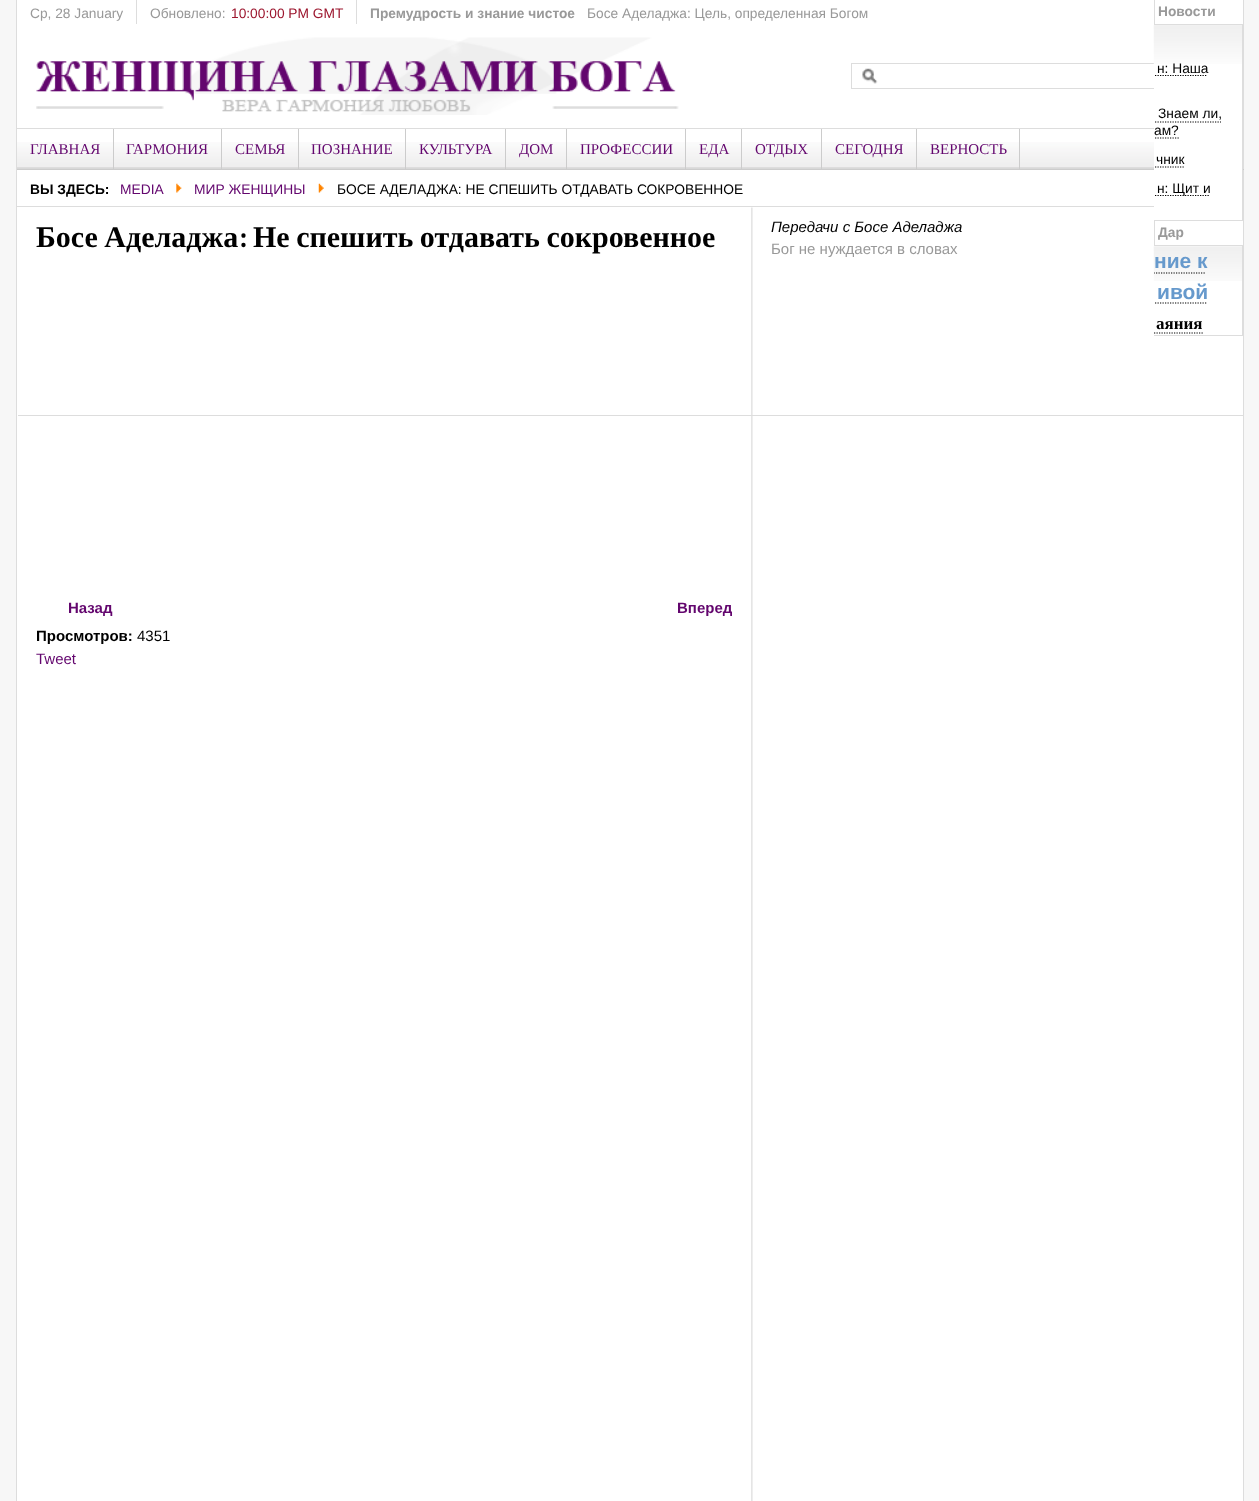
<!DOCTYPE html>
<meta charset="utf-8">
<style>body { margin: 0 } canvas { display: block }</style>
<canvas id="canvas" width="1259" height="1501"></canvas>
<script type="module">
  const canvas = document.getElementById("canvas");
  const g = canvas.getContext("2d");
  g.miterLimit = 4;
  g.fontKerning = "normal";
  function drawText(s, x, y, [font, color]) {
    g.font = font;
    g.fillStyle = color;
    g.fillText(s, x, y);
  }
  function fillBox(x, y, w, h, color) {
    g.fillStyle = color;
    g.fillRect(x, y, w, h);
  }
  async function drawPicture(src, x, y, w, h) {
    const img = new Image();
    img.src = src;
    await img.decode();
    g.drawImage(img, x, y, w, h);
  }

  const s1 = ["13.75px Liberation Sans", "#999999"];
  const s2 = ["13.75px Liberation Sans", "#9C162E"];
  const s3 = ["bold 13.75px Liberation Sans", "#999999"];
  const s4 = ["13.75px Liberation Sans", "#000000"];
  const s5 = ["bold 21px Liberation Sans", "#6699CC"];
  const s6 = ["bold 17px Liberation Serif", "#000000"];
  const s7 = ["15px Liberation Serif", "#63066E"];
  const s8 = ["bold 13.8px Liberation Sans", "#000000"];
  const s9 = ["13.8px Liberation Sans", "#63066E"];
  const s10 = ["13.8px Liberation Sans", "#000000"];
  const s11 = ["bold 30px Liberation Serif", "#000000"];
  const s12 = ["bold 30px Caladea", "#000000"];
  const s13 = ["bold 15px Liberation Sans", "#63066E"];
  const s14 = ["bold 15px Liberation Sans", "#000000"];
  const s15 = ["15px Liberation Sans", "#000000"];
  const s16 = ["15px Liberation Sans", "#63066E"];
  const s17 = ["italic 15px Liberation Sans", "#000000"];
  const s18 = ["15px Liberation Sans", "#999999"];

  fillBox(0, 0, 1259, 1501, "#F7F7F7");
  fillBox(17, 0, 1226, 128, "#FFFFFF");
  fillBox(17, 208, 1226, 1293, "#FFFFFF");
  fillBox(17, 170, 1137, 38, "#FFFFFF");
  await drawPicture("pic8.png", 751, 207, 2, 1294);
  fillBox(18, 415, 1225, 1, "#DDDDDD");
  fillBox(136, 0, 1, 24, "#DDDDDD");
  drawText("Ср, 28 January", 30, 18, s1);
  fillBox(356, 0, 1, 24, "#DDDDDD");
  drawText("Обновлено:", 150, 18, s1);
  drawText("10:00:00 PM GMT", 231, 18, s2);
  drawText("Премудрость и знание чистое", 370, 18, s3);
  drawText("Босе Аделаджа: Цель, определенная Богом", 587, 18, s1);
  fillBox(1154, 0, 1, 24, "#DDDDDD");
  drawText("Новости", 1158, 16, s3);
  await drawPicture("pic4.png", 862, 68, 16, 16);
  g.strokeStyle = "#DDDDDD";
  g.strokeRect(851.5, 63.5, 372, 25);
  fillBox(16, 169, 1228, 1, "#CCCCCC");
  fillBox(1243, 170, 1, 1331, "#DDDDDD");
  fillBox(16, 206, 1228, 1, "#DDDDDD");
  fillBox(1154, 64, 88, 144, "#FFFFFF");
  await drawPicture("pic1.png", 1153, 25, 89, 39);
  fillBox(17, 129, 1137, 40, "#FFFFFF");
  await drawPicture("pic5.png", 17, 142, 1137, 27);
  fillBox(16, 128, 1138, 1, "#DDDDDD");
  fillBox(1019, 129, 1, 40, "#CCCCCC");
  g.save();
  g.beginPath();
  g.rect(1154, 0, 89, 221);
  g.clip();
  g.strokeRect(1015.5, 24.5, 227, 196);
  g.restore();
  drawText("н: Наша", 1157, 73, s4);
  g.save();
  g.beginPath();
  g.rect(1154, 54, 69, 46);
  g.clip();
  g.beginPath();
  g.moveTo(1050, 75.5);
  g.lineTo(1207.5, 75.5);
  g.strokeStyle = "#000000";
  g.lineWidth = 1.2;
  g.setLineDash([1.25, 1.25]);
  g.stroke();
  g.restore();
  drawText("Знаем ли,", 1158, 118, s4);
  g.save();
  g.beginPath();
  g.rect(1154, 100, 69, 45);
  g.clip();
  g.beginPath();
  g.moveTo(1050, 122);
  g.lineTo(1221, 122);
  g.strokeStyle = "#000000";
  g.lineWidth = 1.2;
  g.setLineDash([1.25, 1.25]);
  g.stroke();
  g.restore();
  drawText("ам?", 1154, 135, s4);
  g.save();
  g.beginPath();
  g.rect(1154, 100, 69, 45);
  g.clip();
  g.beginPath();
  g.moveTo(1050, 138);
  g.lineTo(1179, 138);
  g.strokeStyle = "#000000";
  g.lineWidth = 1.2;
  g.setLineDash([1.25, 1.25]);
  g.stroke();
  g.restore();
  drawText("чник", 1156, 164, s4);
  g.save();
  g.beginPath();
  g.rect(1154, 145, 69, 29);
  g.clip();
  g.beginPath();
  g.moveTo(1050, 167);
  g.lineTo(1185, 167);
  g.strokeStyle = "#000000";
  g.lineWidth = 1.2;
  g.setLineDash([1.25, 1.25]);
  g.stroke();
  g.restore();
  g.save();
  g.beginPath();
  g.rect(1154, 174, 69, 46);
  g.clip();
  g.beginPath();
  g.moveTo(1050, 195.5);
  g.lineTo(1210, 195.5);
  g.strokeStyle = "#000000";
  g.lineWidth = 1.2;
  g.setLineDash([1.25, 1.25]);
  g.stroke();
  g.restore();
  drawText("н: Щит и", 1157, 193, s4);
  fillBox(1154, 221, 1, 24, "#DDDDDD");
  drawText("Дар", 1158, 237, s3);
  await drawPicture("pic2.png", 1153, 246, 89, 35);
  g.save();
  g.beginPath();
  g.rect(1154, 221, 89, 115);
  g.clip();
  g.strokeRect(1015.5, 245.5, 227, 90);
  g.restore();
  drawText("ние к", 1154, 268, s5);
  g.save();
  g.beginPath();
  g.rect(1154, 221, 89, 115);
  g.clip();
  g.beginPath();
  g.moveTo(1051, 273);
  g.lineTo(1206, 273);
  g.moveTo(1050, 303);
  g.lineTo(1207.5, 303);
  g.strokeStyle = "#000000";
  g.lineWidth = 1.2;
  g.setLineDash([1.25, 1.25]);
  g.stroke();
  g.restore();
  drawText("ивой", 1157, 299, s5);
  drawText("аяния", 1156, 329, s6);
  g.save();
  g.beginPath();
  g.rect(1154, 221, 89, 115);
  g.clip();
  g.beginPath();
  g.moveTo(1054, 333);
  g.lineTo(1204, 333);
  g.strokeStyle = "#000000";
  g.lineWidth = 1.2;
  g.setLineDash([1.25, 1.25]);
  g.stroke();
  g.restore();
  await drawPicture("pic3.png", 36, 37, 643, 78);
  fillBox(1243, 0, 1, 169, "#DDDDDD");
  fillBox(16, 0, 1, 169, "#DDDDDD");
  fillBox(113, 129, 1, 40, "#CCCCCC");
  drawText("ГЛАВНАЯ", 30, 154, s7);
  fillBox(221, 129, 1, 40, "#CCCCCC");
  drawText("ГАРМОНИЯ", 126, 154, s7);
  fillBox(298, 129, 1, 40, "#CCCCCC");
  drawText("СЕМЬЯ", 235, 154, s7);
  fillBox(405, 129, 1, 40, "#CCCCCC");
  drawText("ПОЗНАНИЕ", 311, 154, s7);
  fillBox(505, 129, 1, 40, "#CCCCCC");
  drawText("КУЛЬТУРА", 419, 154, s7);
  fillBox(566, 129, 1, 40, "#CCCCCC");
  drawText("ДОМ", 519, 154, s7);
  fillBox(685, 129, 1, 40, "#CCCCCC");
  drawText("ПРОФЕССИИ", 580, 154, s7);
  fillBox(741, 129, 1, 40, "#CCCCCC");
  drawText("ЕДА", 699, 154, s7);
  fillBox(821, 129, 1, 40, "#CCCCCC");
  drawText("ОТДЫХ", 755, 154, s7);
  fillBox(916, 129, 1, 40, "#CCCCCC");
  drawText("СЕГОДНЯ", 835, 154, s7);
  drawText("ВЕРНОСТЬ", 930, 154, s7);
  fillBox(16, 169, 1, 1, "#DDDDDD");
  fillBox(16, 170, 1, 1331, "#DDDDDD");
  drawText("ВЫ ЗДЕСЬ:", 30, 194, s8);
  drawText("MEDIA", 120, 194, s9);
  await drawPicture("pic6.png", 176, 183, 6, 10);
  drawText("МИР ЖЕНЩИНЫ", 194, 194, s9);
  await drawPicture("pic7.png", 318, 183, 6, 10);
  drawText("БОСЕ АДЕЛАДЖА: НЕ СПЕШИТЬ ОТДАВАТЬ СОКРОВЕННОЕ", 337, 194, s10);
  g.wordSpacing = "-1px";
  drawText("Босе Аделаджа", 36, 247, s11);
  g.wordSpacing = "0px";
  drawText(":", 239, 247, s12);
  g.wordSpacing = "-1px";
  drawText("Не спешить отдавать сокровенное", 253, 247, s11);
  g.wordSpacing = "0px";
  drawText("Назад", 68, 613, s13);
  drawText("Вперед", 677, 613, s13);
  drawText("Просмотров:", 36, 641, s14);
  drawText("4351", 137, 641, s15);
  drawText("Tweet", 36, 664, s16);
  drawText("Передачи с Босе Аделаджа", 771, 232, s17);
  drawText("Бог не нуждается в словах", 771, 254, s18);
</script>
